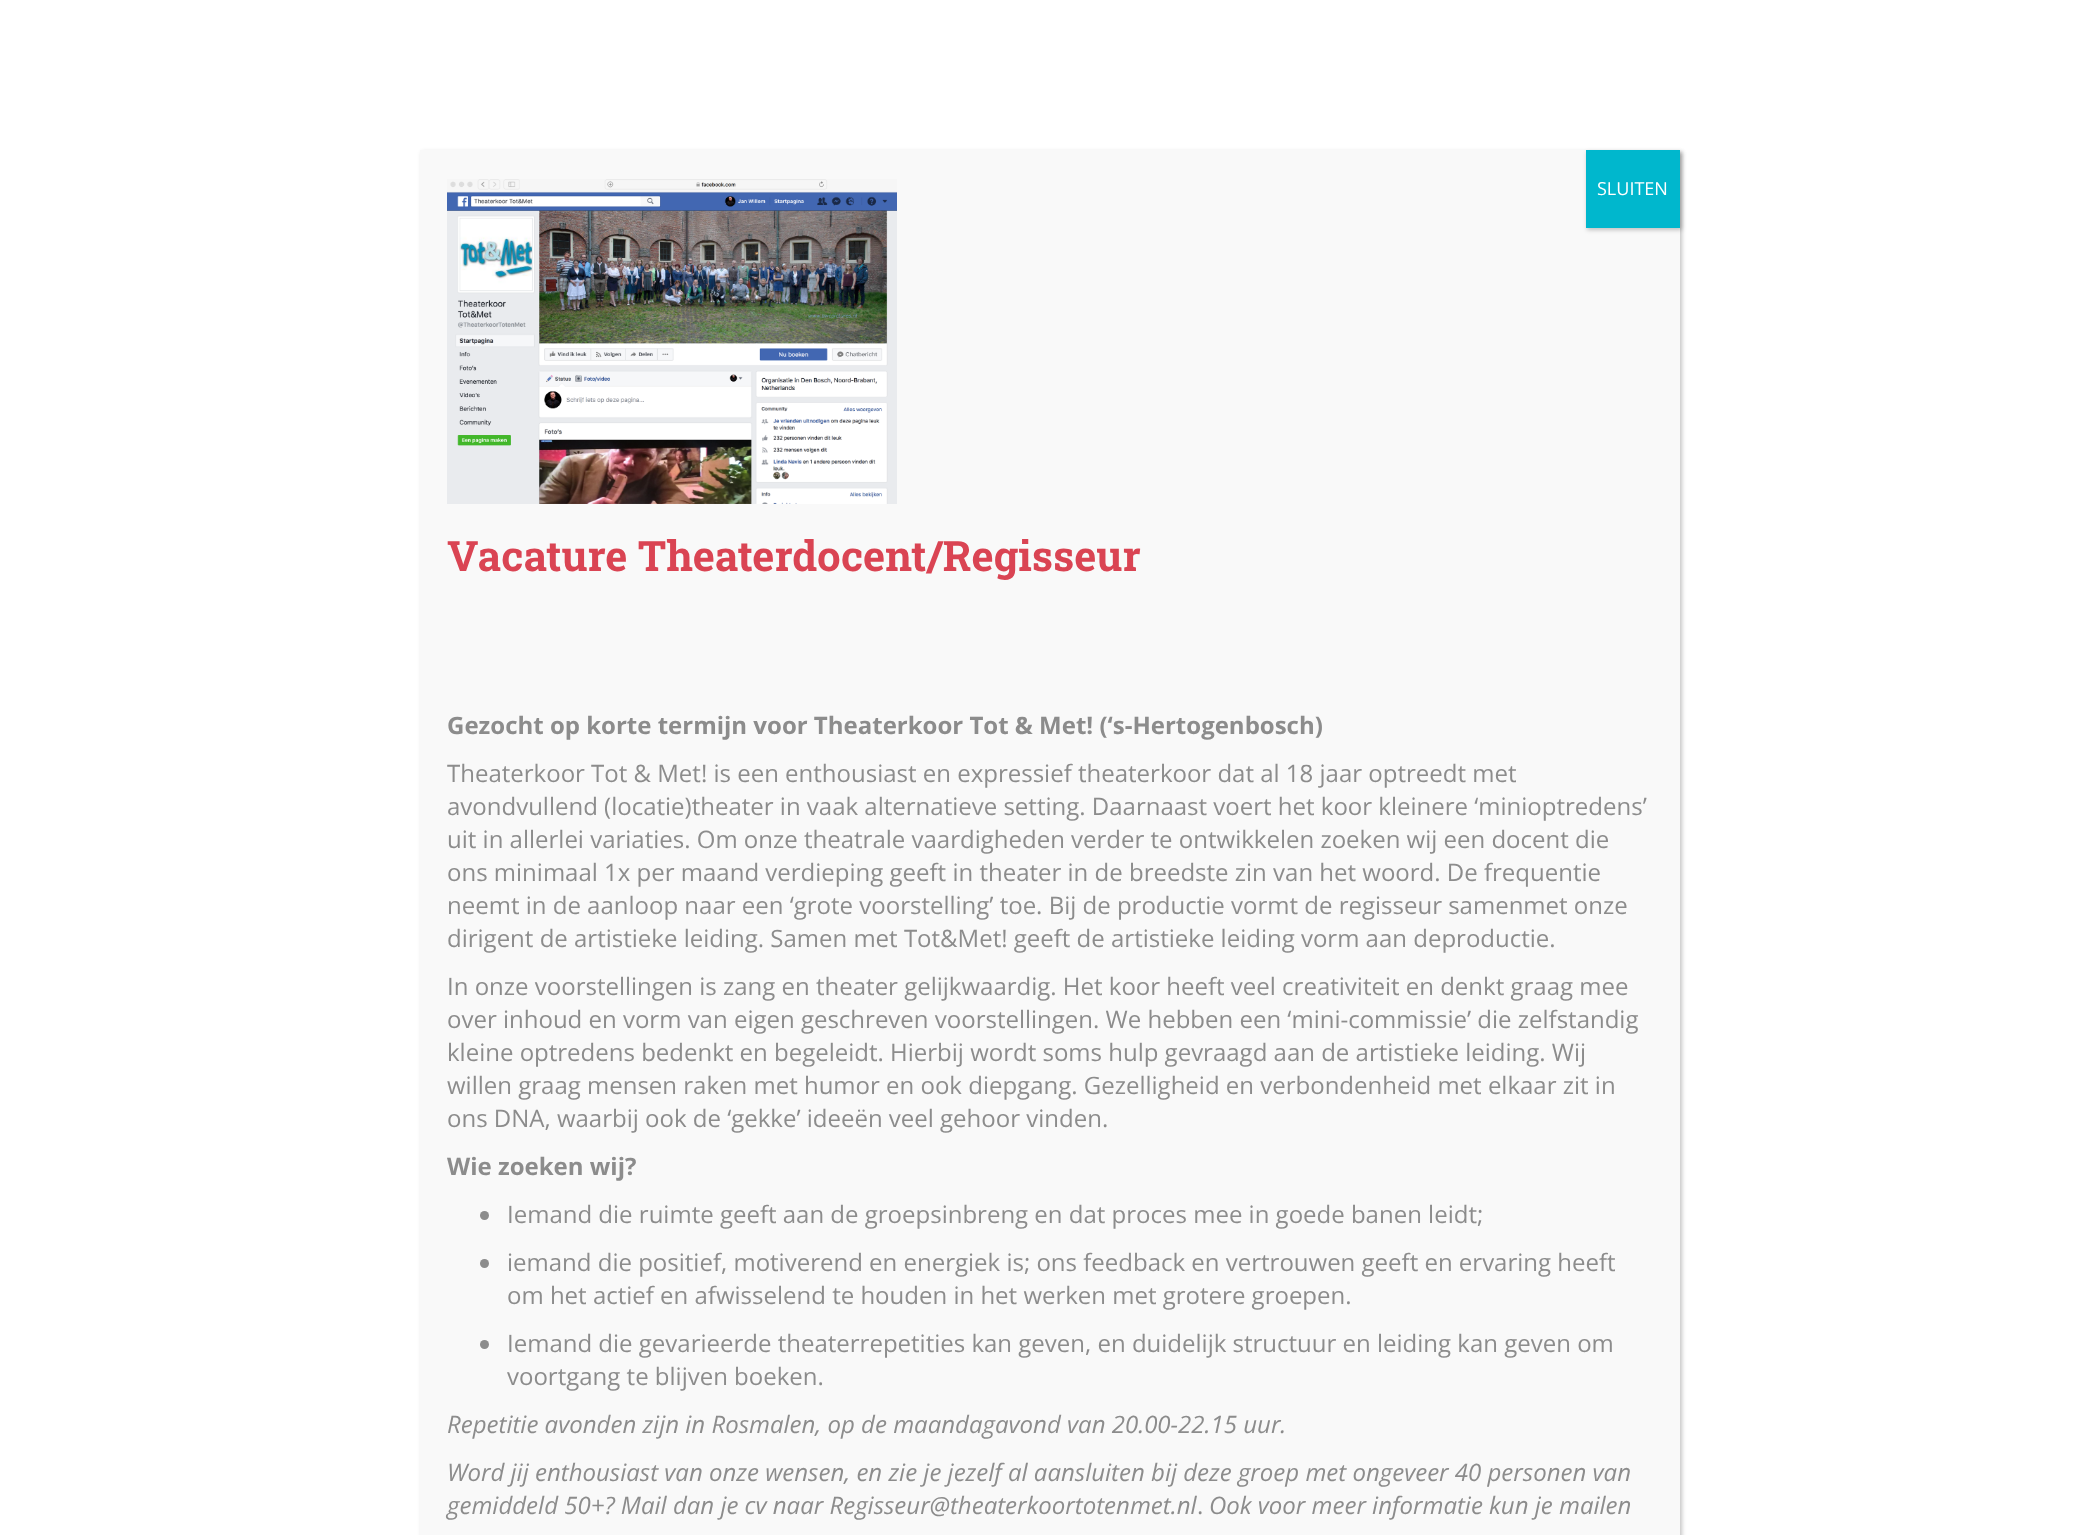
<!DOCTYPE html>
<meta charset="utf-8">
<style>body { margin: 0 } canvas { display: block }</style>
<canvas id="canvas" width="2100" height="1535"></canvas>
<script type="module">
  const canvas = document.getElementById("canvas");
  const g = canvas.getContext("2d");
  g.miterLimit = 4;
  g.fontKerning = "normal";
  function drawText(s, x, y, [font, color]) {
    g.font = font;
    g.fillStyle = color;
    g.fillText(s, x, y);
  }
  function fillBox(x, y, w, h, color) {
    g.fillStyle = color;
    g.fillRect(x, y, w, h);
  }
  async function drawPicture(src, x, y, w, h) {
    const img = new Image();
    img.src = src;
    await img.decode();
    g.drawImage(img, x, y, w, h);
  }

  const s1 = ["18px Open Sans", "#FFFFFF"];
  const s2 = ["bold 42px Roboto Slab", "#DA4453"];
  const s3 = ["bold 24px Open Sans", "#8C8C8C"];
  const s4 = ["24px Open Sans", "#8C8C8C"];
  const s5 = ["italic 24px Open Sans", "#8C8C8C"];

  fillBox(0, 0, 2100, 1535, "#FFFFFF");
  g.fillStyle = "rgba(2, 2, 2, 0.23)";
  g.filter = "blur(2px)";
  g.beginPath();
  g.rect(422, 152, 1260, 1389);
  g.fill();
  g.filter = "none";
  fillBox(420, 150, 1260, 1385, "#F9F9F9");
  g.fillStyle = "rgba(2, 2, 2, 0.23)";
  g.filter = "blur(2px)";
  g.beginPath();
  g.rect(1587, 152, 95, 78);
  g.fill();
  g.filter = "none";
  fillBox(1586, 150, 94, 78, "#00B7CD");
  drawText("SLUITEN", 1597, 195, s1);
  await drawPicture("pic1.png", 447, 179, 450, 325);
  drawText("Vacature Theaterdocent/Regisseur", 447, 571, s2);
  drawText("Gezocht op korte termijn voor Theaterkoor Tot & Met! (‘s-Hertogenbosch)", 447, 734, s3);
  drawText("Theaterkoor Tot & Met! is een enthousiast en expressief theaterkoor dat al 18 jaar optreedt met", 447, 782, s4);
  drawText("avondvullend (locatie)theater in vaak alternatieve setting. Daarnaast voert het koor kleinere ‘minioptredens’", 447, 815, s4);
  drawText("uit in allerlei variaties. Om onze theatrale vaardigheden verder te ontwikkelen zoeken wij een docent die", 447, 848, s4);
  drawText("ons minimaal 1x per maand verdieping geeft in theater in de breedste zin van het woord. De frequentie", 447, 881, s4);
  drawText("neemt in de aanloop naar een ‘grote voorstelling’ toe. Bij de productie vormt de regisseur samenmet onze", 447, 914, s4);
  drawText("dirigent de artistieke leiding. Samen met Tot&Met! geeft de artistieke leiding vorm aan deproductie.", 447, 947, s4);
  drawText("In onze voorstellingen is zang en theater gelijkwaardig. Het koor heeft veel creativiteit en denkt graag mee", 447, 995, s4);
  drawText("over inhoud en vorm van eigen geschreven voorstellingen. We hebben een ‘mini-commissie’ die zelfstandig", 447, 1028, s4);
  drawText("kleine optredens bedenkt en begeleidt. Hierbij wordt soms hulp gevraagd aan de artistieke leiding. Wij", 447, 1061, s4);
  drawText("willen graag mensen raken met humor en ook diepgang. Gezelligheid en verbondenheid met elkaar zit in", 447, 1094, s4);
  drawText("ons DNA, waarbij ook de ‘gekke’ ideeën veel gehoor vinden.", 447, 1127, s4);
  drawText("Wie zoeken wij?", 447, 1175, s3);
  g.beginPath();
  g.arc(484.5, 1215.5, 4.5, 0, Math.PI * 2);
  g.fill();
  drawText("Iemand die ruimte geeft aan de groepsinbreng en dat proces mee in goede banen leidt;", 507, 1223, s4);
  g.beginPath();
  g.arc(484.5, 1263.5, 4.5, 0, Math.PI * 2);
  g.fill();
  drawText("iemand die positief, motiverend en energiek is; ons feedback en vertrouwen geeft en ervaring heeft", 507, 1271, s4);
  drawText("om het actief en afwisselend te houden in het werken met grotere groepen.", 507, 1304, s4);
  g.beginPath();
  g.arc(484.5, 1344.5, 4.5, 0, Math.PI * 2);
  g.fill();
  drawText("Iemand die gevarieerde theaterrepetities kan geven, en duidelijk structuur en leiding kan geven om", 507, 1352, s4);
  drawText("voortgang te blijven boeken.", 507, 1385, s4);
  drawText("Repetitie avonden zijn in Rosmalen, op de maandagavond van 20.00-22.15 uur.", 447, 1433, s5);
  drawText("Word jij enthousiast van onze wensen, en zie je jezelf al aansluiten bij deze groep met ongeveer 40 personen van", 447, 1481, s5);
  drawText("gemiddeld 50+? Mail dan je cv naar Regisseur@theaterkoortotenmet.nl", 447, 1514, s5);
  drawText(".", 1197, 1514, s4);
  drawText("Ook voor meer informatie kun je mailen", 1209, 1514, s5);
</script>
